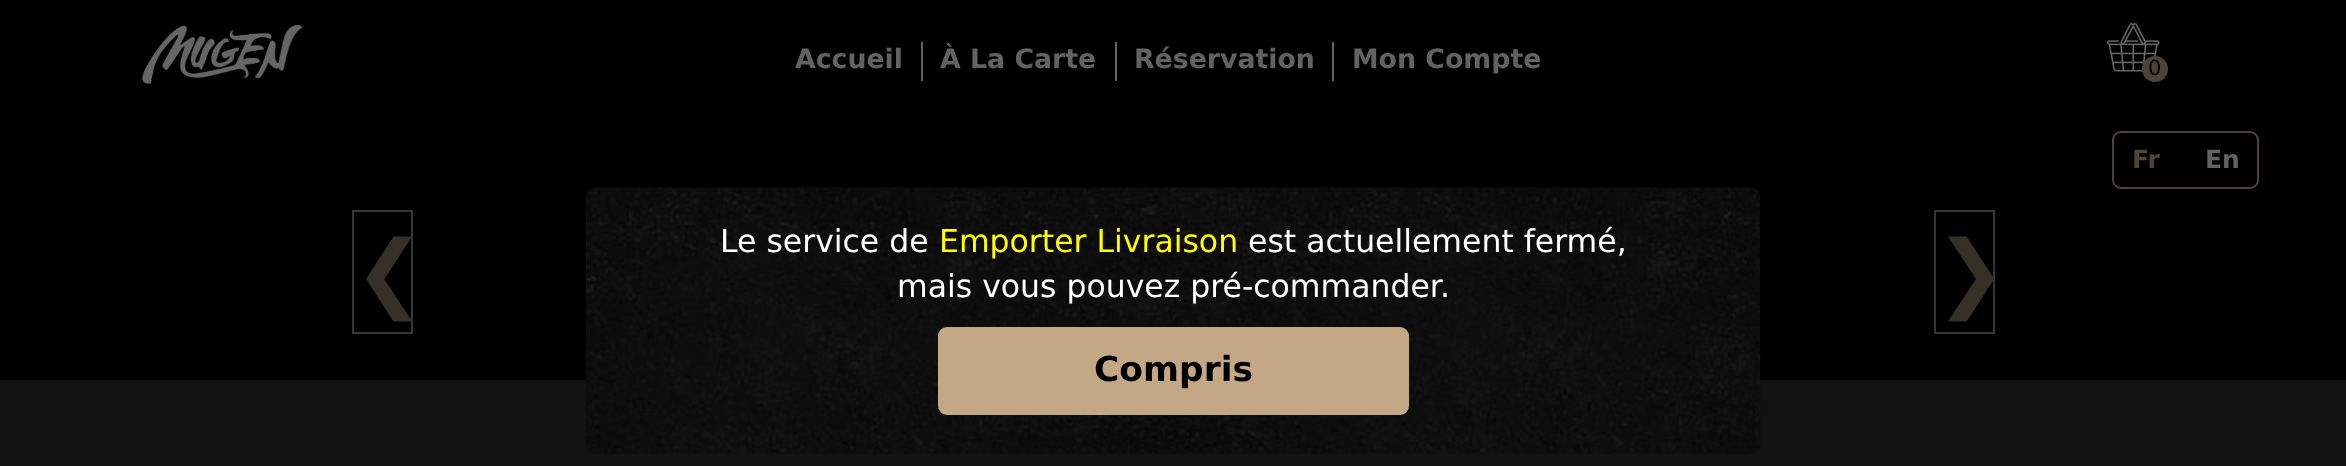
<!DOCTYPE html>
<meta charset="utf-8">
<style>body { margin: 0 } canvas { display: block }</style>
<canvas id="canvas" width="2346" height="466"></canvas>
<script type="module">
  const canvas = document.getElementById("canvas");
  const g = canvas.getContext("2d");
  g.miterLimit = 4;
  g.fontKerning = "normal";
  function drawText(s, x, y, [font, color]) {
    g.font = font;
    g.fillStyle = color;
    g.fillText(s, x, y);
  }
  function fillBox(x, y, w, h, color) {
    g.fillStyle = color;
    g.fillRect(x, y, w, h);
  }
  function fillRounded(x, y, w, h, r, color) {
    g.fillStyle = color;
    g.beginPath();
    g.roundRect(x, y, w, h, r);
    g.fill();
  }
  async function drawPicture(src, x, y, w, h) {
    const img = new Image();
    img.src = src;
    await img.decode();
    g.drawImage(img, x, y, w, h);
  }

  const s1 = ["bold 26.75px DejaVu Sans", "#626262"];
  const s2 = ["21px DejaVu Sans", "#000000"];
  const s3 = ["bold 25px DejaVu Sans", "#4E4336"];
  const s4 = ["bold 25px DejaVu Sans", "#626262"];
  const s5 = ["31.5px DejaVu Sans", "#FFFFFF"];
  const s6 = ["31.5px DejaVu Sans", "#FFFF00"];
  const s7 = ["bold 34.5px DejaVu Sans", "#000000"];
  const s8 = ["85px DejaVu Sans", "#363026"];

  fillBox(0, 0, 2346, 466, "#000000");
  await drawPicture("pic1.png", 142, 24, 161, 60);
  fillBox(921, 42, 2, 39, "#626262");
  drawText("Accueil", 795, 68, s1);
  fillBox(1115, 42, 2, 39, "#626262");
  drawText("À La Carte", 940, 68, s1);
  fillBox(1332, 42, 2, 39, "#626262");
  drawText("Réservation", 1134, 68, s1);
  drawText("Mon Compte", 1352, 68, s1);
  await drawPicture("pic2.png", 2107, 23, 53, 49);
  g.fillStyle = "#4E4336";
  g.beginPath();
  g.arc(2155, 69, 13, 0, Math.PI * 2);
  g.fill();
  drawText("0", 2148, 75, s2);
  g.beginPath();
  g.roundRect(2113, 132, 145, 56, 8);
  g.strokeStyle = "#4E4336";
  g.lineWidth = 2;
  g.stroke();
  drawText("Fr", 2132, 168, s3);
  drawText("En", 2205, 168, s4);
  fillBox(0, 380, 2346, 86, "#121212");
  await drawPicture("pic3.png", 586, 187, 1175, 267);
  drawText("Le service de", 720, 252, s5);
  drawText("Emporter Livraison", 939, 252, s6);
  drawText("est actuellement fermé,", 1248, 252, s5);
  drawText("mais vous pouvez pré-commander.", 897, 297, s5);
  fillRounded(938, 327, 471, 88, 9, "#C4A886");
  drawText("Compris", 1094, 381, s7);
  g.strokeStyle = "#363636";
  g.strokeRect(353, 211, 59, 122);
  drawText("❮", 354, 301, s8);
  g.strokeRect(1935, 211, 59, 122);
  drawText("❯", 1935, 301, s8);
</script>
